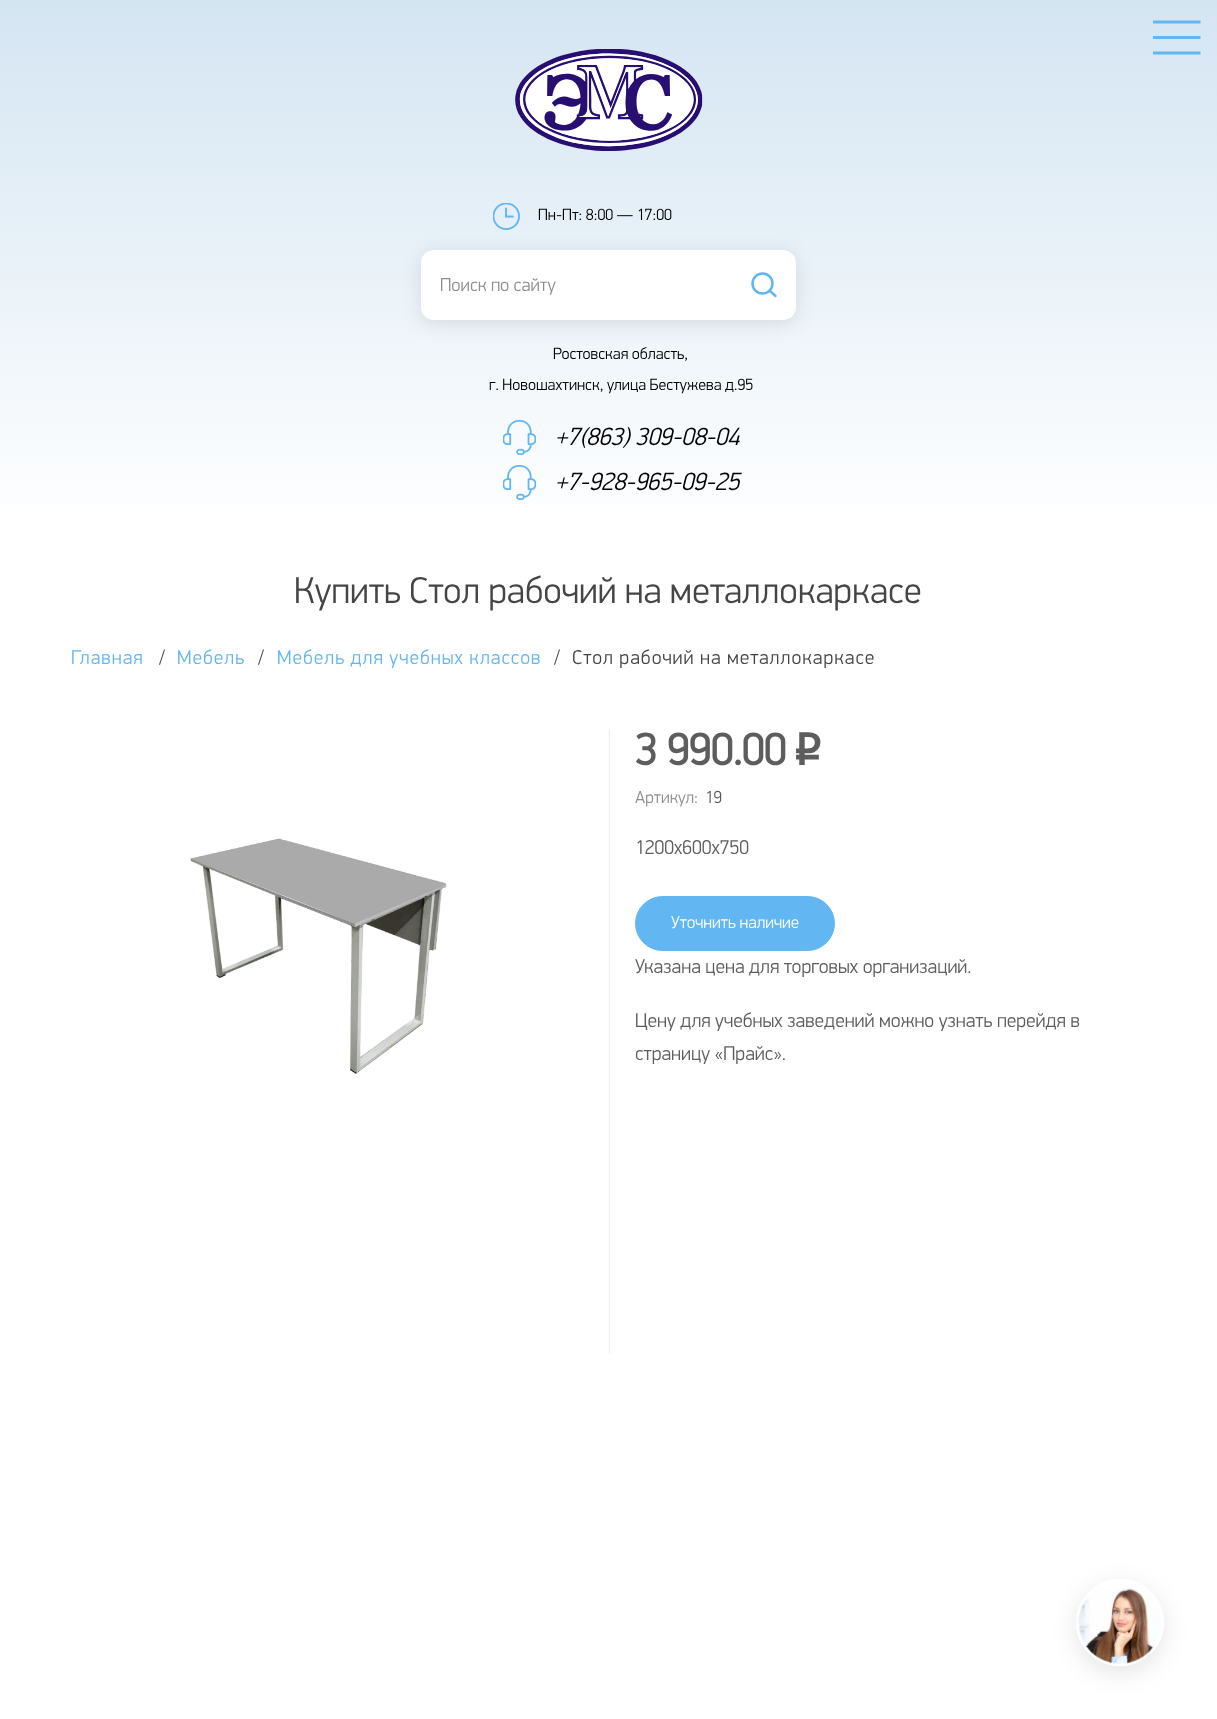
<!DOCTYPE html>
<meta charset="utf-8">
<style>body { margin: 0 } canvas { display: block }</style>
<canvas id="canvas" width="1217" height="1719"></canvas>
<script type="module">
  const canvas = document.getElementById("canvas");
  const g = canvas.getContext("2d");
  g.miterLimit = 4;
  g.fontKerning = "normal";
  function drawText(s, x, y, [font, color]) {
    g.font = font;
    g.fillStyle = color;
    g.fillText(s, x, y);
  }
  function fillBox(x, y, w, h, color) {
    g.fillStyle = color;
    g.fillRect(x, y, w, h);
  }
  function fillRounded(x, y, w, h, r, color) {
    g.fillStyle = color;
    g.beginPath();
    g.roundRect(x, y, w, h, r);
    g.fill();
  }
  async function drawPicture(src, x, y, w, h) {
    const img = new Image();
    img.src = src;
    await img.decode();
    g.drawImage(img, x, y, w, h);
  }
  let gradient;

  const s1 = ["300 16.25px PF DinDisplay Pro", "#000000"];
  const s2 = ["300 18.75px PF DinDisplay Pro", "#8E8E8E"];
  const s3 = ["italic 300 25px PF DinDisplay Pro", "#000000"];
  const s4 = ["300 37.5px PF DinDisplay Pro", "#454545"];
  const s5 = ["300 20px PF DinDisplay Pro", "#62B6F2"];
  const s6 = ["300 20px PF DinDisplay Pro", "#454545"];
  const s7 = ["bold 45px PF DinDisplay Pro", "#5D5D5D"];
  const s8 = ["bold 45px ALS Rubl", "#5D5D5D"];
  const s9 = ["300 17.5px PF DinDisplay Pro", "#8E8E8E"];
  const s10 = ["300 17.5px PF DinDisplay Pro", "#5D5D5D"];
  const s11 = ["300 20px PF DinDisplay Pro", "#5D5D5D"];
  const s12 = ["300 17.5px PF DinDisplay Pro", "#FFFFFF"];

  fillBox(0, 0, 1217, 1719, "#FFFFFF");
  gradient = g.createLinearGradient(609, 0, 609, 535);
  gradient.addColorStop(0, "#D4E5F2");
  gradient.addColorStop(1, "#FFFFFF");
  g.fillStyle = gradient;
  g.fillRect(0, 0, 1217, 504);
  g.beginPath();
  g.moveTo(1153, 22);
  g.lineTo(1200.5, 22);
  g.moveTo(1153, 37.5);
  g.lineTo(1200.5, 37.5);
  g.moveTo(1153, 53);
  g.lineTo(1200.5, 53);
  g.strokeStyle = "#62B6F2";
  g.lineWidth = 3.1;
  g.stroke();
  await drawPicture("pic1.png", 515, 49, 188, 102);
  await drawPicture("pic2.png", 493, 203, 27, 27);
  drawText("Пн-Пт: 8:00 — 17:00", 538, 220, s1);
  g.fillStyle = "rgba(0, 0, 0, 0.1)";
  g.filter = "blur(9.5px)";
  g.beginPath();
  g.roundRect(421, 254, 375, 70, 13);
  g.fill();
  g.filter = "none";
  fillRounded(421, 250, 375, 70, 13, "#FFFFFF");
  drawText("Поиск по сайту", 440, 291, s2);
  g.beginPath();
  g.arc(762.5, 283.5, 10, 0, Math.PI * 2);
  g.lineWidth = 2.5;
  g.stroke();
  g.beginPath();
  g.moveTo(775.5, 296);
  g.lineTo(770, 291);
  g.lineCap = "round";
  g.lineJoin = "round";
  g.stroke();
  drawText("Ростовская область,", 553, 359, s1);
  drawText("г. Новошахтинск, улица Бестужева д.95", 489, 390, s1);
  await drawPicture("pic3.png", 503, 420, 33, 35);
  drawText("+7(863) 309-08-04", 555, 445, s3);
  await drawPicture("pic4.png", 503, 465, 33, 35);
  drawText("+7-928-965-09-25", 555, 490, s3);
  drawText("Купить Стол рабочий на металлокаркасе", 294, 603, s4);
  g.letterSpacing = "1px";
  drawText("Главная", 71, 664, s5);
  g.letterSpacing = "0px";
  drawText("/", 159, 664, s6);
  g.letterSpacing = "1px";
  drawText("Мебель", 177, 664, s5);
  g.letterSpacing = "0px";
  drawText("/", 258, 664, s6);
  g.letterSpacing = "1px";
  drawText("Мебель для учебных классов", 277, 664, s5);
  g.letterSpacing = "0px";
  drawText("/", 554, 664, s6);
  g.letterSpacing = "1px";
  drawText("Стол рабочий на металлокаркасе", 572, 664, s6);
  await drawPicture("pic5.png", 190, 838, 257, 236);
  fillBox(609, 729, 1, 625, "#EEEEEE");
  g.letterSpacing = "0px";
  drawText("3 990.00", 635, 765, s7);
  drawText("i", 792, 765, s8);
  drawText("Артикул:", 635, 803, s9);
  drawText("19", 705, 803, s10);
  drawText("1200х600х750", 635, 854, s11);
  g.fillStyle = "#62B6F2";
  g.beginPath();
  g.roundRect(635.5, 896.5, 199, 54, 27);
  g.fill();
  g.lineWidth = 1;
  g.lineJoin = "miter";
  g.stroke();
  drawText("Уточнить наличие", 671, 928, s12);
  drawText("Указана цена для торговых организаций.", 635, 973, s11);
  drawText("Цену для учебных заведений можно узнать перейдя в", 635, 1027, s11);
  drawText("страницу «Прайс».", 635, 1060, s11);
  g.save();
  g.beginPath();
  g.moveTo(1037, 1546);
  g.lineTo(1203, 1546);
  g.lineTo(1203, 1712);
  g.lineTo(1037, 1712);
  g.closePath();
  g.moveTo(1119.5, 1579);
  g.lineTo(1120.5, 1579);
  g.bezierCurveTo(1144.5, 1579, 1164, 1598.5, 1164, 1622.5);
  g.bezierCurveTo(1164, 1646.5, 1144.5, 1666, 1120.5, 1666);
  g.lineTo(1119.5, 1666);
  g.bezierCurveTo(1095.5, 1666, 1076, 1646.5, 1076, 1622.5);
  g.bezierCurveTo(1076, 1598.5, 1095.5, 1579, 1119.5, 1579);
  g.closePath();
  g.clip("evenodd");
  g.fillStyle = "rgba(0, 0, 0, 0.1)";
  g.filter = "blur(12.5px)";
  g.beginPath();
  g.roundRect(1076, 1585, 88, 88, 44);
  g.fill();
  g.filter = "none";
  g.restore();
  g.beginPath();
  g.roundRect(1077.5, 1580.5, 85, 84, 42);
  g.strokeStyle = "#FFFFFF";
  g.lineWidth = 3;
  g.stroke();
  await drawPicture("pic6.png", 1078, 1588, 83, 76);
</script>
